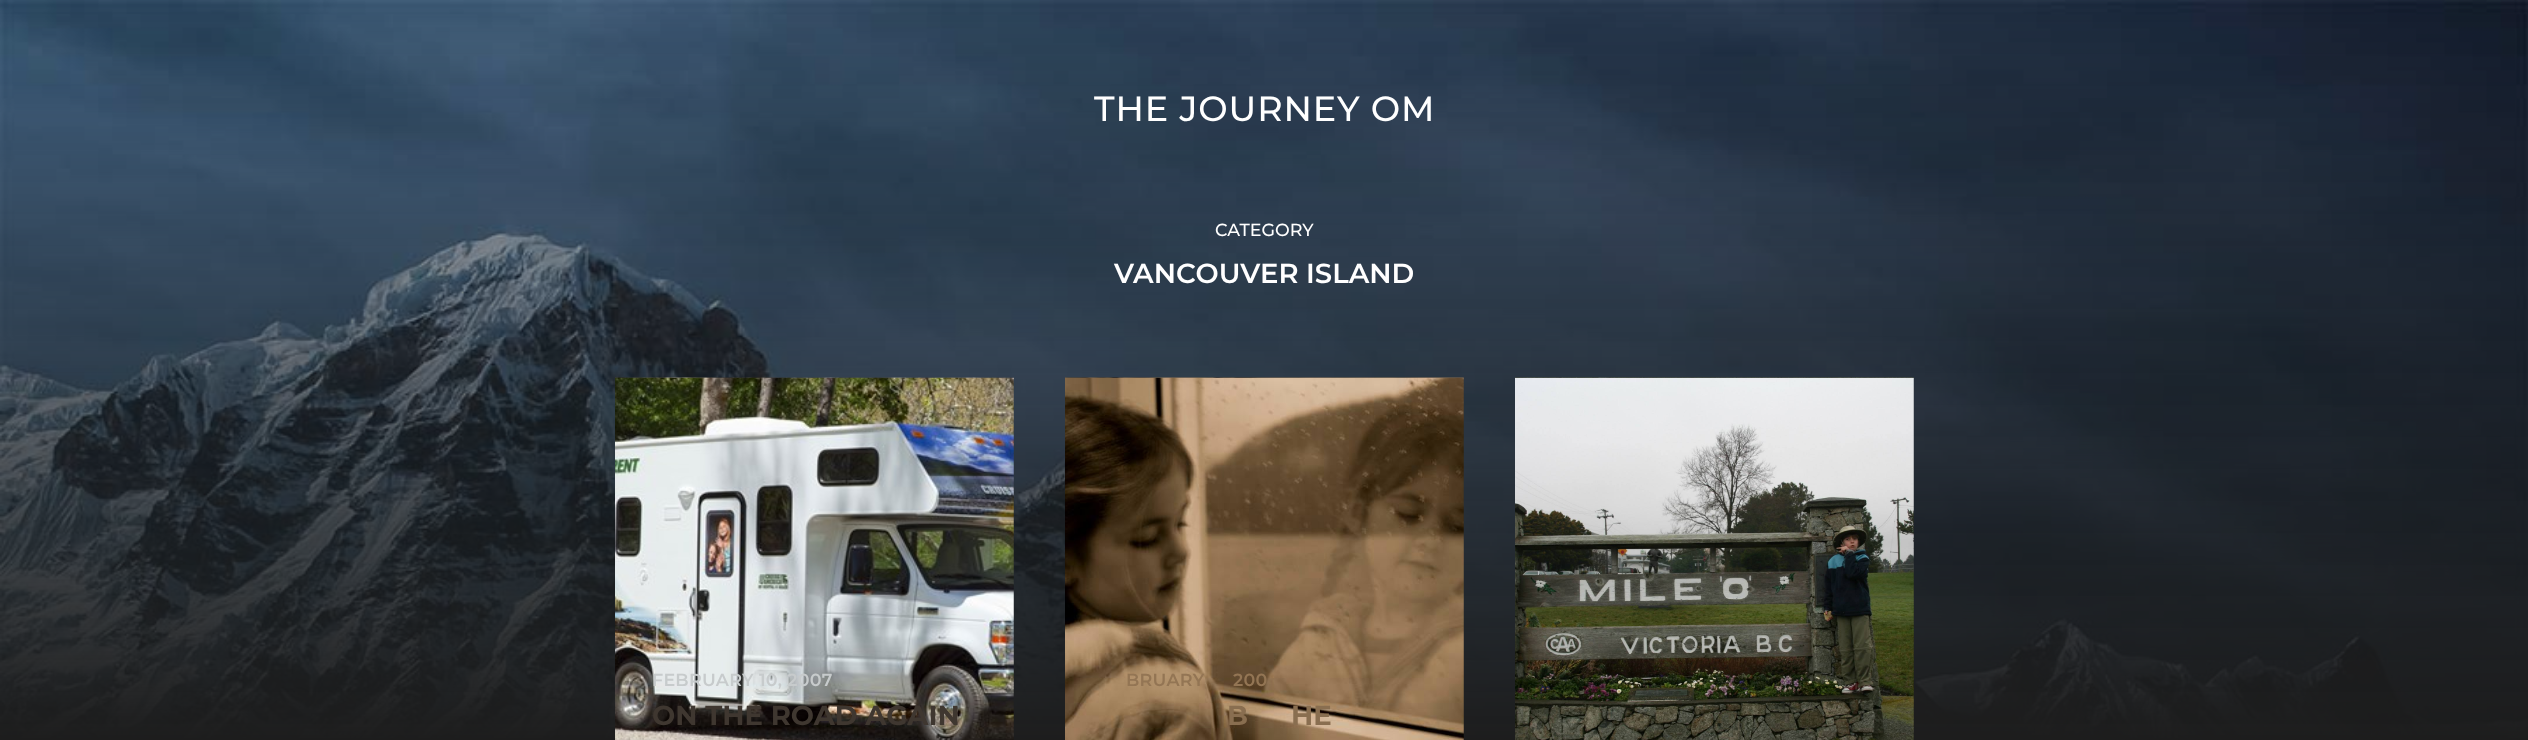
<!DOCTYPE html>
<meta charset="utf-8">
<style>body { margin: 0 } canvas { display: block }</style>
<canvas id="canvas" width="2528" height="740"></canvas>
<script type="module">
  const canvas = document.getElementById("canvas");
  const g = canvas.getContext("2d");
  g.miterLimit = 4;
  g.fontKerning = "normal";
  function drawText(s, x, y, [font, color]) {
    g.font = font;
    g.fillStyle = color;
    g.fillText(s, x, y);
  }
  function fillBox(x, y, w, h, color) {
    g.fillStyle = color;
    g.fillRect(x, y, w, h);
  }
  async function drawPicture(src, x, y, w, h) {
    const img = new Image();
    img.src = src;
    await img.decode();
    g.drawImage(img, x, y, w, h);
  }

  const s1 = ["100 35px Montserrat", "#FFFFFF"];
  const s2 = ["100 17.5px Montserrat", "#FFFFFF"];
  const s3 = ["100 27.5px 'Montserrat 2'", "#FFFFFF"];
  const s4 = ["100 17.5px 'Montserrat 2'", "#C7CBCC"];
  const s5 = ["100 27.5px 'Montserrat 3'", "#3F3730"];
  const s6 = ["100 17.5px 'Montserrat 2'", "#937554"];
  const s7 = ["100 27.5px 'Montserrat 3'", "#896E50"];

  fillBox(0, 0, 2528, 740, "#FFFFFF");
  await drawPicture("pic1.png", 0, 0, 2528, 740);
  g.letterSpacing = "0.9px";
  drawText("THE JOURNEY OM", 1094, 121, s1);
  g.letterSpacing = "0px";
  drawText("CATEGORY", 1215, 236, s2);
  drawText("VANCOUVER ISLAND", 1114, 283, s3);
  await drawPicture("pic2.png", 615, 377, 399, 363);
  g.letterSpacing = "0.25px";
  drawText("FEBRUARY 10, 2007", 652, 686, s4);
  g.letterSpacing = "0px";
  drawText("ON THE ROAD AGAIN", 652, 725, s5);
  await drawPicture("pic3.png", 1065, 377, 399, 363);
  g.letterSpacing = "0.25px";
  drawText("BRUARY", 1126, 686, s6);
  drawText("200", 1233, 686, s6);
  g.letterSpacing = "0px";
  drawText("B", 1227, 725, s7);
  drawText("HE", 1291, 725, s7);
  await drawPicture("pic4.png", 1515, 377, 399, 363);
</script>
